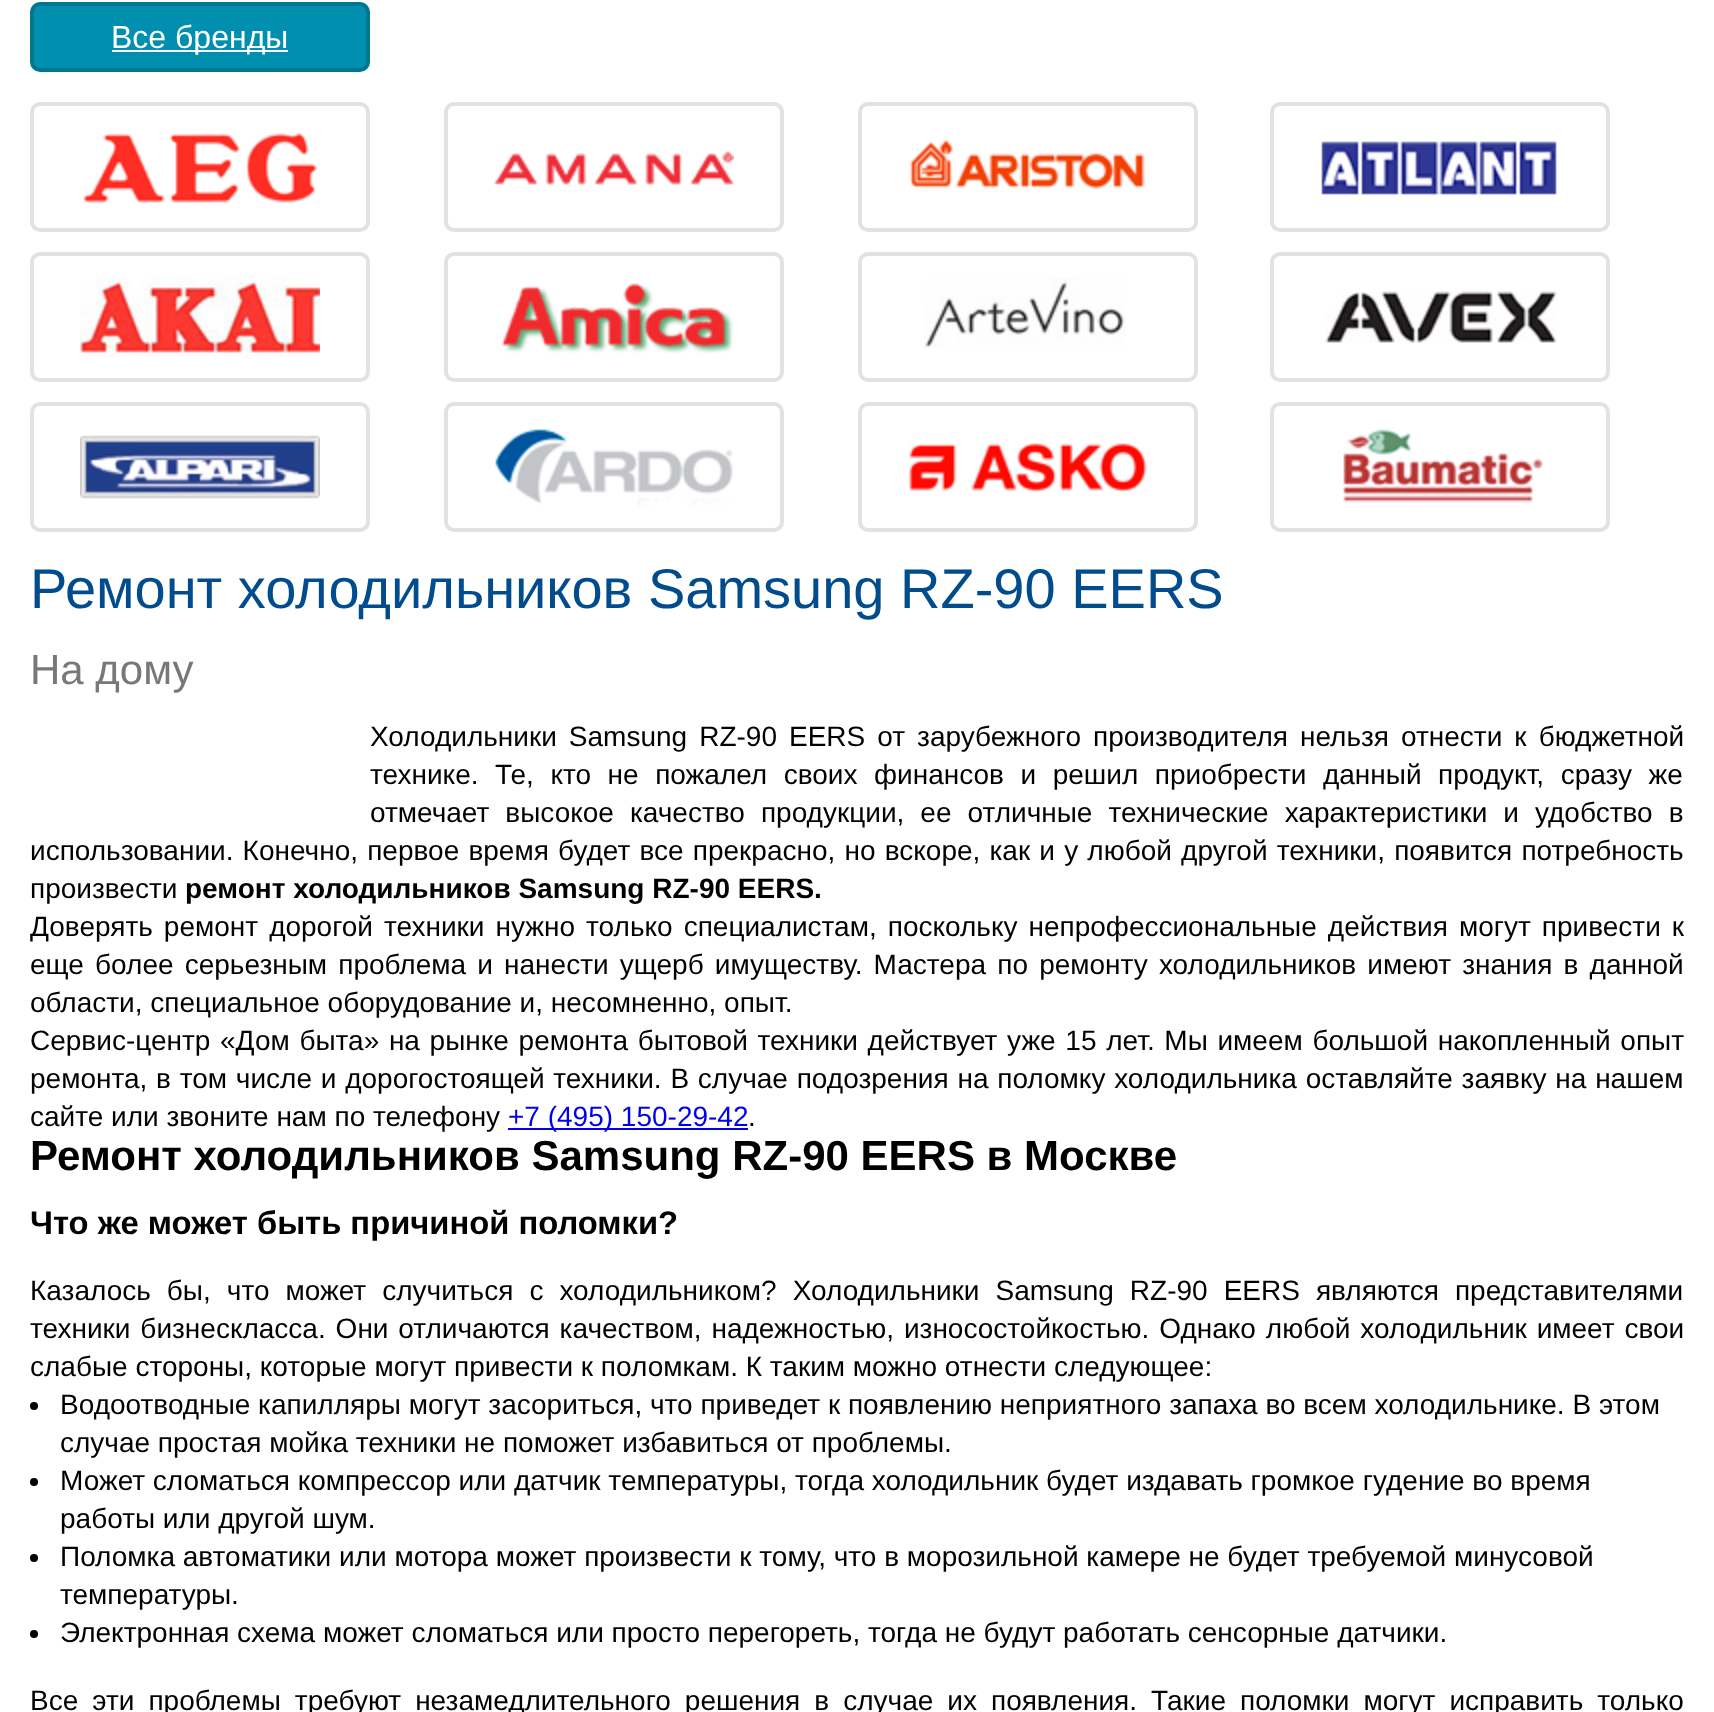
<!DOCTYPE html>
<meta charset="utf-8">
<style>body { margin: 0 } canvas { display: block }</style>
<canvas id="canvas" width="1714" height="1712"></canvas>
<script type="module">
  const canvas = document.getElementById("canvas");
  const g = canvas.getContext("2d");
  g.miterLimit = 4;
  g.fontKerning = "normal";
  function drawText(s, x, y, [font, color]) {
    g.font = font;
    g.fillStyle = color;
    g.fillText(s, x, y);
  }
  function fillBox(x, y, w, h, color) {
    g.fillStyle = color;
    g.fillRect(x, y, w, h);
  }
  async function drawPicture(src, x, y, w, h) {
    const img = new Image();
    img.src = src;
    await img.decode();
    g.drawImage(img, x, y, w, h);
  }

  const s1 = ["32px Liberation Sans", "#FFFFFF"];
  const s2 = ["56px Liberation Sans", "#004C8C"];
  const s3 = ["42px Liberation Sans", "#787878"];
  const s4 = ["28px Liberation Sans", "#000000"];
  const s5 = ["bold 28px Liberation Sans", "#000000"];
  const s6 = ["28px Liberation Sans", "#0000EE"];
  const s7 = ["bold 42px Liberation Sans", "#000000"];
  const s8 = ["bold 32.75px Liberation Sans", "#000000"];

  fillBox(0, 0, 1714, 1712, "#FFFFFF");
  g.fillStyle = "#008FAE";
  g.beginPath();
  g.roundRect(32, 4, 336, 66, 8);
  g.fill();
  g.strokeStyle = "#00768F";
  g.lineWidth = 4;
  g.stroke();
  fillBox(112, 50, 176, 2, "#FFFFFF");
  drawText("Все бренды", 111, 48, s1);
  g.beginPath();
  g.roundRect(32, 104, 336, 126, 8);
  g.strokeStyle = "#E2E2E2";
  g.stroke();
  await drawPicture("pic1.png", 83, 133, 234, 70);
  g.beginPath();
  g.roundRect(446, 104, 336, 126, 8);
  g.stroke();
  await drawPicture("pic2.png", 494, 151, 240, 34);
  g.beginPath();
  g.roundRect(860, 104, 336, 126, 8);
  g.stroke();
  await drawPicture("pic3.png", 909, 139, 236, 50);
  g.beginPath();
  g.roundRect(1272, 104, 336, 126, 8);
  g.stroke();
  await drawPicture("pic4.png", 1321, 141, 236, 54);
  g.beginPath();
  g.roundRect(32, 254, 336, 126, 8);
  g.stroke();
  await drawPicture("pic5.png", 80, 278, 240, 80);
  g.beginPath();
  g.roundRect(446, 254, 336, 126, 8);
  g.stroke();
  await drawPicture("pic6.png", 501, 283, 232, 71);
  g.beginPath();
  g.roundRect(860, 254, 336, 126, 8);
  g.stroke();
  await drawPicture("pic7.png", 924, 278, 202, 70);
  g.beginPath();
  g.roundRect(1272, 254, 336, 126, 8);
  g.stroke();
  await drawPicture("pic8.png", 1325, 291, 232, 52);
  g.beginPath();
  g.roundRect(32, 404, 336, 126, 8);
  g.stroke();
  await drawPicture("pic9.png", 80, 435, 240, 64);
  g.beginPath();
  g.roundRect(446, 404, 336, 126, 8);
  g.stroke();
  await drawPicture("pic10.png", 495, 429, 238, 77);
  g.beginPath();
  g.roundRect(860, 404, 336, 126, 8);
  g.stroke();
  await drawPicture("pic11.png", 909, 443, 238, 49);
  g.beginPath();
  g.roundRect(1272, 404, 336, 126, 8);
  g.stroke();
  await drawPicture("pic12.png", 1343, 429, 200, 74);
  drawText("Ремонт холодильников Samsung RZ-90 EERS", 30, 608, s2);
  drawText("На дому", 30, 684, s3);
  g.wordSpacing = "4.25px";
  drawText("Холодильники Samsung RZ-90 EERS от зарубежного производителя нельзя отнести к бюджетной", 370, 746, s4);
  g.wordSpacing = "8.75px";
  drawText("технике. Те, кто не пожалел своих финансов и решил приобрести данный продукт, сразу же", 370, 784, s4);
  g.wordSpacing = "8.25px";
  drawText("отмечает высокое качество продукции, ее отличные технические характеристики и удобство в", 370, 822, s4);
  g.wordSpacing = "1.4px";
  drawText("использовании. Конечно, первое время будет все прекрасно, но вскоре, как и у любой другой техники, появится потребность", 30, 860, s4);
  g.wordSpacing = "0px";
  drawText("произвести", 30, 898, s4);
  drawText("ремонт холодильников Samsung RZ-90 EERS.", 185, 898, s5);
  g.wordSpacing = "3.25px";
  drawText("Доверять ремонт дорогой техники нужно только специалистам, поскольку непрофессиональные действия могут привести к", 30, 936, s4);
  g.wordSpacing = "3.4px";
  drawText("еще более серьезным проблема и нанести ущерб имуществу. Мастера по ремонту холодильников имеют знания в данной", 30, 974, s4);
  g.wordSpacing = "0px";
  drawText("области, специальное оборудование и, несомненно, опыт.", 30, 1012, s4);
  g.wordSpacing = "1.9px";
  drawText("Сервис-центр «Дом быта» на рынке ремонта бытовой техники действует уже 15 лет. Мы имеем большой накопленный опыт", 30, 1050, s4);
  g.wordSpacing = "1px";
  drawText("ремонта, в том числе и дорогостоящей техники. В случае подозрения на поломку холодильника оставляйте заявку на нашем", 30, 1088, s4);
  g.wordSpacing = "0px";
  drawText("сайте или звоните нам по телефону", 30, 1126, s4);
  fillBox(508, 1128, 240, 2, "#0000EE");
  drawText("+7 (495) 150-29-42", 508, 1126, s6);
  drawText(".", 748, 1126, s4);
  drawText("Ремонт холодильников Samsung RZ-90 EERS в Москве", 30, 1170, s7);
  drawText("Что же может быть причиной поломки?", 30, 1234, s8);
  g.wordSpacing = "8.25px";
  drawText("Казалось бы, что может случиться с холодильником? Холодильники Samsung RZ-90 EERS являются представителями", 30, 1300, s4);
  g.wordSpacing = "2.1px";
  drawText("техники бизнескласса. Они отличаются качеством, надежностью, износостойкостью. Однако любой холодильник имеет свои", 30, 1338, s4);
  g.wordSpacing = "0px";
  drawText("слабые стороны, которые могут привести к поломкам. К таким можно отнести следующее:", 30, 1376, s4);
  g.beginPath();
  g.arc(34, 1406, 4, 0, Math.PI * 2);
  g.fill();
  drawText("Водоотводные капилляры могут засориться, что приведет к появлению неприятного запаха во всем холодильнике. В этом", 60, 1414, s4);
  drawText("случае простая мойка техники не поможет избавиться от проблемы.", 60, 1452, s4);
  g.beginPath();
  g.arc(34, 1482, 4, 0, Math.PI * 2);
  g.fill();
  drawText("Может сломаться компрессор или датчик температуры, тогда холодильник будет издавать громкое гудение во время", 60, 1490, s4);
  drawText("работы или другой шум.", 60, 1528, s4);
  g.beginPath();
  g.arc(34, 1558, 4, 0, Math.PI * 2);
  g.fill();
  drawText("Поломка автоматики или мотора может произвести к тому, что в морозильной камере не будет требуемой минусовой", 60, 1566, s4);
  drawText("температуры.", 60, 1604, s4);
  g.beginPath();
  g.arc(34, 1634, 4, 0, Math.PI * 2);
  g.fill();
  drawText("Электронная схема может сломаться или просто перегореть, тогда не будут работать сенсорные датчики.", 60, 1642, s4);
  g.wordSpacing = "6.25px";
  drawText("Все эти проблемы требуют незамедлительного решения в случае их появления. Такие поломки могут исправить только", 30, 1710, s4);
</script>
